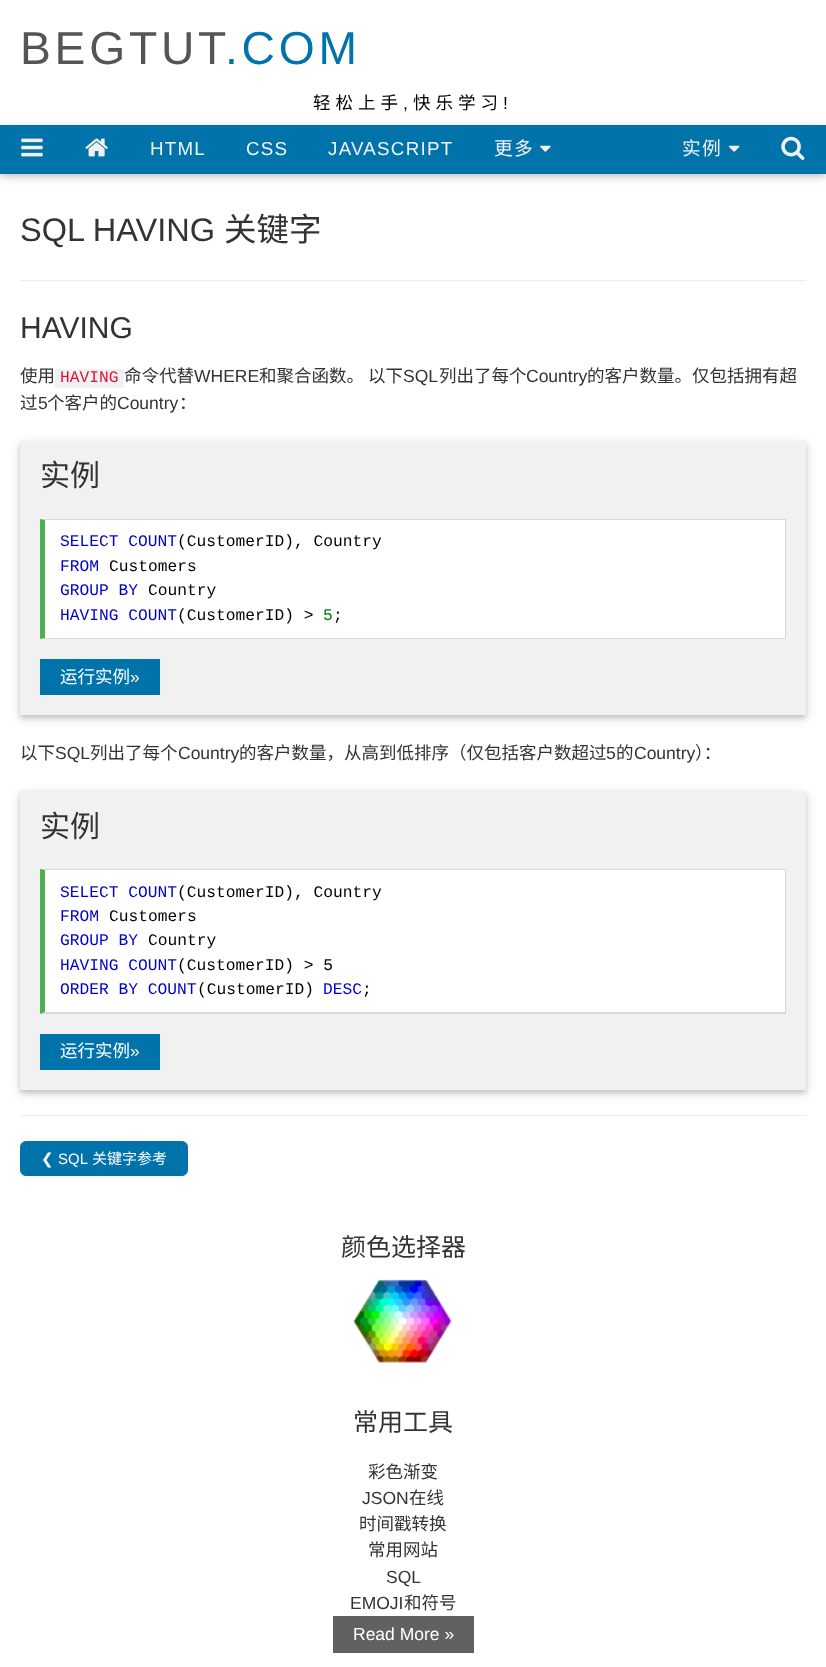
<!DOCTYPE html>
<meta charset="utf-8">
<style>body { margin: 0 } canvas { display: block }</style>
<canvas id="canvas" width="826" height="1667"></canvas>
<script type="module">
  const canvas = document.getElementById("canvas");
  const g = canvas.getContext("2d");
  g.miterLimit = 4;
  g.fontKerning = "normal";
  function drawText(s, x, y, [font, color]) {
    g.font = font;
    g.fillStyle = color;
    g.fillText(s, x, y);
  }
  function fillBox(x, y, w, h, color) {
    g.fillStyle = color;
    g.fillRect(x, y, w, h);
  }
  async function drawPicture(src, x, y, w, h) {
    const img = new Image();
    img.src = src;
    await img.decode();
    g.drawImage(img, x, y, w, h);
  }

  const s1 = ["46.25px Liberation Sans", "#555555"];
  const s2 = ["46.25px Liberation Sans", "#0073AA"];
  const s3 = ["17.5px Noto Sans CJK SC", "#000000"];
  const s4 = ["17.5px Liberation Sans", "#000000"];
  const s5 = ["18.75px Liberation Sans", "#F1F1F1"];
  const s6 = ["18.75px Noto Sans CJK SC", "#F1F1F1"];
  const s7 = ["32.5px Liberation Sans", "#333333"];
  const s8 = ["32.5px Noto Sans CJK SC", "#333333"];
  const s9 = ["30px Liberation Sans", "#333333"];
  const s10 = ["17.5px Noto Sans CJK SC", "#333333"];
  const s11 = ["16.25px Liberation Mono", "#DC143C"];
  const s12 = ["17.5px Liberation Sans", "#333333"];
  const s13 = ["30px Noto Sans CJK SC", "#333333"];
  const s14 = ["16.25px Liberation Mono", "#0000CD"];
  const s15 = ["16.25px Liberation Mono", "#000000"];
  const s16 = ["16.25px Liberation Mono", "#008000"];
  const s17 = ["17.5px Noto Sans CJK SC", "#FFFFFF"];
  const s18 = ["17.5px Liberation Sans", "#FFFFFF"];
  const s19 = ["15px DejaVu Sans", "#FFFFFF"];
  const s20 = ["15px Liberation Sans", "#FFFFFF"];
  const s21 = ["15px Noto Sans CJK SC", "#FFFFFF"];
  const s22 = ["25px Noto Sans CJK SC", "#333333"];

  fillBox(0, 0, 826, 1667, "#FFFFFF");
  g.letterSpacing = "3.75px";
  drawText("BEGTUT", 20, 64, s1);
  drawText(".COM", 225, 64, s2);
  g.letterSpacing = "5px";
  drawText("轻松上手", 313, 109, s3);
  drawText("快乐学习", 413, 109, s3);
  drawText("!", 503, 109, s4);
  drawText(",", 403, 109, s4);
  g.fillStyle = "rgba(0, 0, 0, 0.12)";
  g.filter = "blur(6px)";
  g.beginPath();
  g.rect(0, 128, 826, 48);
  g.fill();
  g.filter = "none";
  g.fillStyle = "rgba(0, 0, 0, 0.16)";
  g.filter = "blur(3px)";
  g.beginPath();
  g.rect(0, 128, 826, 48);
  g.fill();
  g.filter = "none";
  fillBox(0, 125, 826, 49, "#0073AA");
  await drawPicture("pic1.png", 21, 138, 22, 19);
  await drawPicture("pic2.png", 85, 138, 23, 19);
  g.letterSpacing = "1.25px";
  drawText("HTML", 150, 155, s5);
  drawText("CSS", 246, 155, s5);
  drawText("JAVASCRIPT", 328, 155, s5);
  drawText("更多", 494, 155, s6);
  await drawPicture("pic3.png", 540, 145, 11, 7);
  drawText("实例", 682, 155, s6);
  await drawPicture("pic4.png", 728, 145, 12, 7);
  await drawPicture("pic5.png", 781, 136, 24, 24);
  g.letterSpacing = "0px";
  drawText("SQL HAVING", 20, 241, s7);
  drawText("关键字", 224, 241, s8);
  fillBox(20, 280, 786, 1, "#EEEEEE");
  drawText("HAVING", 20, 338, s9);
  drawText("使用", 20, 382, s10);
  fillBox(55, 369, 69, 19, "#F1F1F1");
  drawText("HAVING", 60, 382, s11);
  drawText("命令代替", 124, 382, s10);
  drawText("WHERE", 194, 382, s12);
  drawText("和聚合函数。", 259, 382, s10);
  drawText("以下", 368, 382, s10);
  drawText("SQL", 403, 382, s12);
  drawText("列出了每个", 439, 382, s10);
  drawText("Country", 526, 382, s12);
  drawText("的客户数量。仅包括拥有超", 587, 382, s10);
  drawText("过", 20, 409, s10);
  drawText("5", 38, 409, s12);
  drawText("个客户的", 47, 409, s10);
  drawText("Country", 117, 409, s12);
  drawText("：", 179, 409, s10);
  g.fillStyle = "rgba(0, 0, 0, 0.12)";
  g.filter = "blur(6px)";
  g.beginPath();
  g.rect(20, 444, 786, 274);
  g.fill();
  g.filter = "none";
  g.fillStyle = "rgba(0, 0, 0, 0.16)";
  g.filter = "blur(2.5px)";
  g.beginPath();
  g.rect(20, 444, 786, 274);
  g.fill();
  g.filter = "none";
  fillBox(20, 441, 786, 274, "#F1F1F1");
  drawText("实例", 40, 486, s13);
  fillBox(45, 520, 740, 118, "#FFFFFF");
  g.fillStyle = "#D9D9D9";
  g.beginPath();
  g.moveTo(40, 519);
  g.lineTo(786, 519);
  g.lineTo(785, 520);
  g.lineTo(45, 520);
  g.closePath();
  g.fill();
  fillBox(785, 519, 1, 120, "#D9D9D9");
  g.beginPath();
  g.moveTo(786, 639);
  g.lineTo(40, 639);
  g.lineTo(45, 638);
  g.lineTo(785, 638);
  g.closePath();
  g.fill();
  g.fillStyle = "#4CAF50";
  g.beginPath();
  g.moveTo(40, 639);
  g.lineTo(40, 519);
  g.lineTo(45, 520);
  g.lineTo(45, 638);
  g.closePath();
  g.fill();
  drawText("SELECT COUNT", 60, 546, s14);
  drawText("(CustomerID), Country", 177, 546, s15);
  drawText("FROM", 60, 571, s14);
  drawText("Customers", 109, 571, s15);
  drawText("GROUP BY", 60, 595, s14);
  drawText("Country", 148, 595, s15);
  drawText("HAVING COUNT", 60, 620, s14);
  drawText("(CustomerID) >", 177, 620, s15);
  drawText("5", 323, 620, s16);
  drawText(";", 333, 620, s15);
  fillBox(40, 659, 120, 36, "#0073AA");
  drawText("运行实例", 60, 683, s17);
  drawText("»", 130, 683, s18);
  drawText("以下", 20, 759, s10);
  drawText("SQL", 55, 759, s12);
  drawText("列出了每个", 90, 759, s10);
  drawText("Country", 178, 759, s12);
  drawText("的客户数量，从高到低排序（仅包括客户数超过", 239, 759, s10);
  drawText("5", 606, 759, s12);
  drawText("的", 616, 759, s10);
  drawText("Country", 634, 759, s12);
  drawText("）：", 695, 759, s10);
  g.fillStyle = "rgba(0, 0, 0, 0.12)";
  g.filter = "blur(6px)";
  g.beginPath();
  g.rect(20, 794, 786, 299);
  g.fill();
  g.filter = "none";
  g.fillStyle = "rgba(0, 0, 0, 0.16)";
  g.filter = "blur(2.5px)";
  g.beginPath();
  g.rect(20, 794, 786, 299);
  g.fill();
  g.filter = "none";
  fillBox(20, 791, 786, 299, "#F1F1F1");
  drawText("实例", 40, 837, s13);
  fillBox(45, 870, 740, 142, "#FFFFFF");
  g.fillStyle = "#D9D9D9";
  g.beginPath();
  g.moveTo(40, 869);
  g.lineTo(786, 869);
  g.lineTo(785, 870);
  g.lineTo(45, 870);
  g.closePath();
  g.fill();
  fillBox(785, 869, 1, 145, "#D9D9D9");
  g.beginPath();
  g.moveTo(786, 1014);
  g.lineTo(40, 1014);
  g.lineTo(45, 1012);
  g.lineTo(785, 1012);
  g.closePath();
  g.fill();
  g.fillStyle = "#4CAF50";
  g.beginPath();
  g.moveTo(40, 1014);
  g.lineTo(40, 869);
  g.lineTo(45, 870);
  g.lineTo(45, 1012);
  g.closePath();
  g.fill();
  drawText("SELECT COUNT", 60, 897, s14);
  drawText("(CustomerID), Country", 177, 897, s15);
  drawText("FROM", 60, 921, s14);
  drawText("Customers", 109, 921, s15);
  drawText("GROUP BY", 60, 945, s14);
  drawText("Country", 148, 945, s15);
  drawText("HAVING COUNT", 60, 970, s14);
  drawText("(CustomerID) > 5", 177, 970, s15);
  drawText("ORDER BY COUNT", 60, 994, s14);
  drawText("(CustomerID)", 197, 994, s15);
  drawText("DESC", 323, 994, s14);
  drawText(";", 362, 994, s15);
  fillBox(40, 1034, 120, 36, "#0073AA");
  drawText("运行实例", 60, 1057, s17);
  drawText("»", 130, 1057, s18);
  fillBox(20, 1115, 786, 1, "#EEEEEE");
  g.fillStyle = "#0073AA";
  g.beginPath();
  g.roundRect(20.5, 1141.5, 167, 34, 5.5);
  g.fill();
  g.strokeStyle = "#0073AA";
  g.stroke();
  drawText("❮", 41, 1164, s19);
  drawText("SQL", 58, 1164, s20);
  drawText("关键字参考", 92, 1164, s21);
  drawText("颜色选择器", 341, 1256, s22);
  await drawPicture("pic6.png", 353, 1279, 99, 84);
  drawText("常用工具", 353, 1431, s22);
  drawText("彩色渐变", 368, 1478, s10);
  drawText("JSON", 362, 1504, s12);
  drawText("在线", 409, 1504, s10);
  drawText("时间戳转换", 359, 1530, s10);
  drawText("常用网站", 368, 1556, s10);
  drawText("SQL", 386, 1583, s12);
  drawText("EMOJI", 350, 1609, s12);
  drawText("和符号", 404, 1609, s10);
  fillBox(333, 1616, 141, 37, "#616161");
  drawText("Read More »", 353, 1640, s18);
</script>
